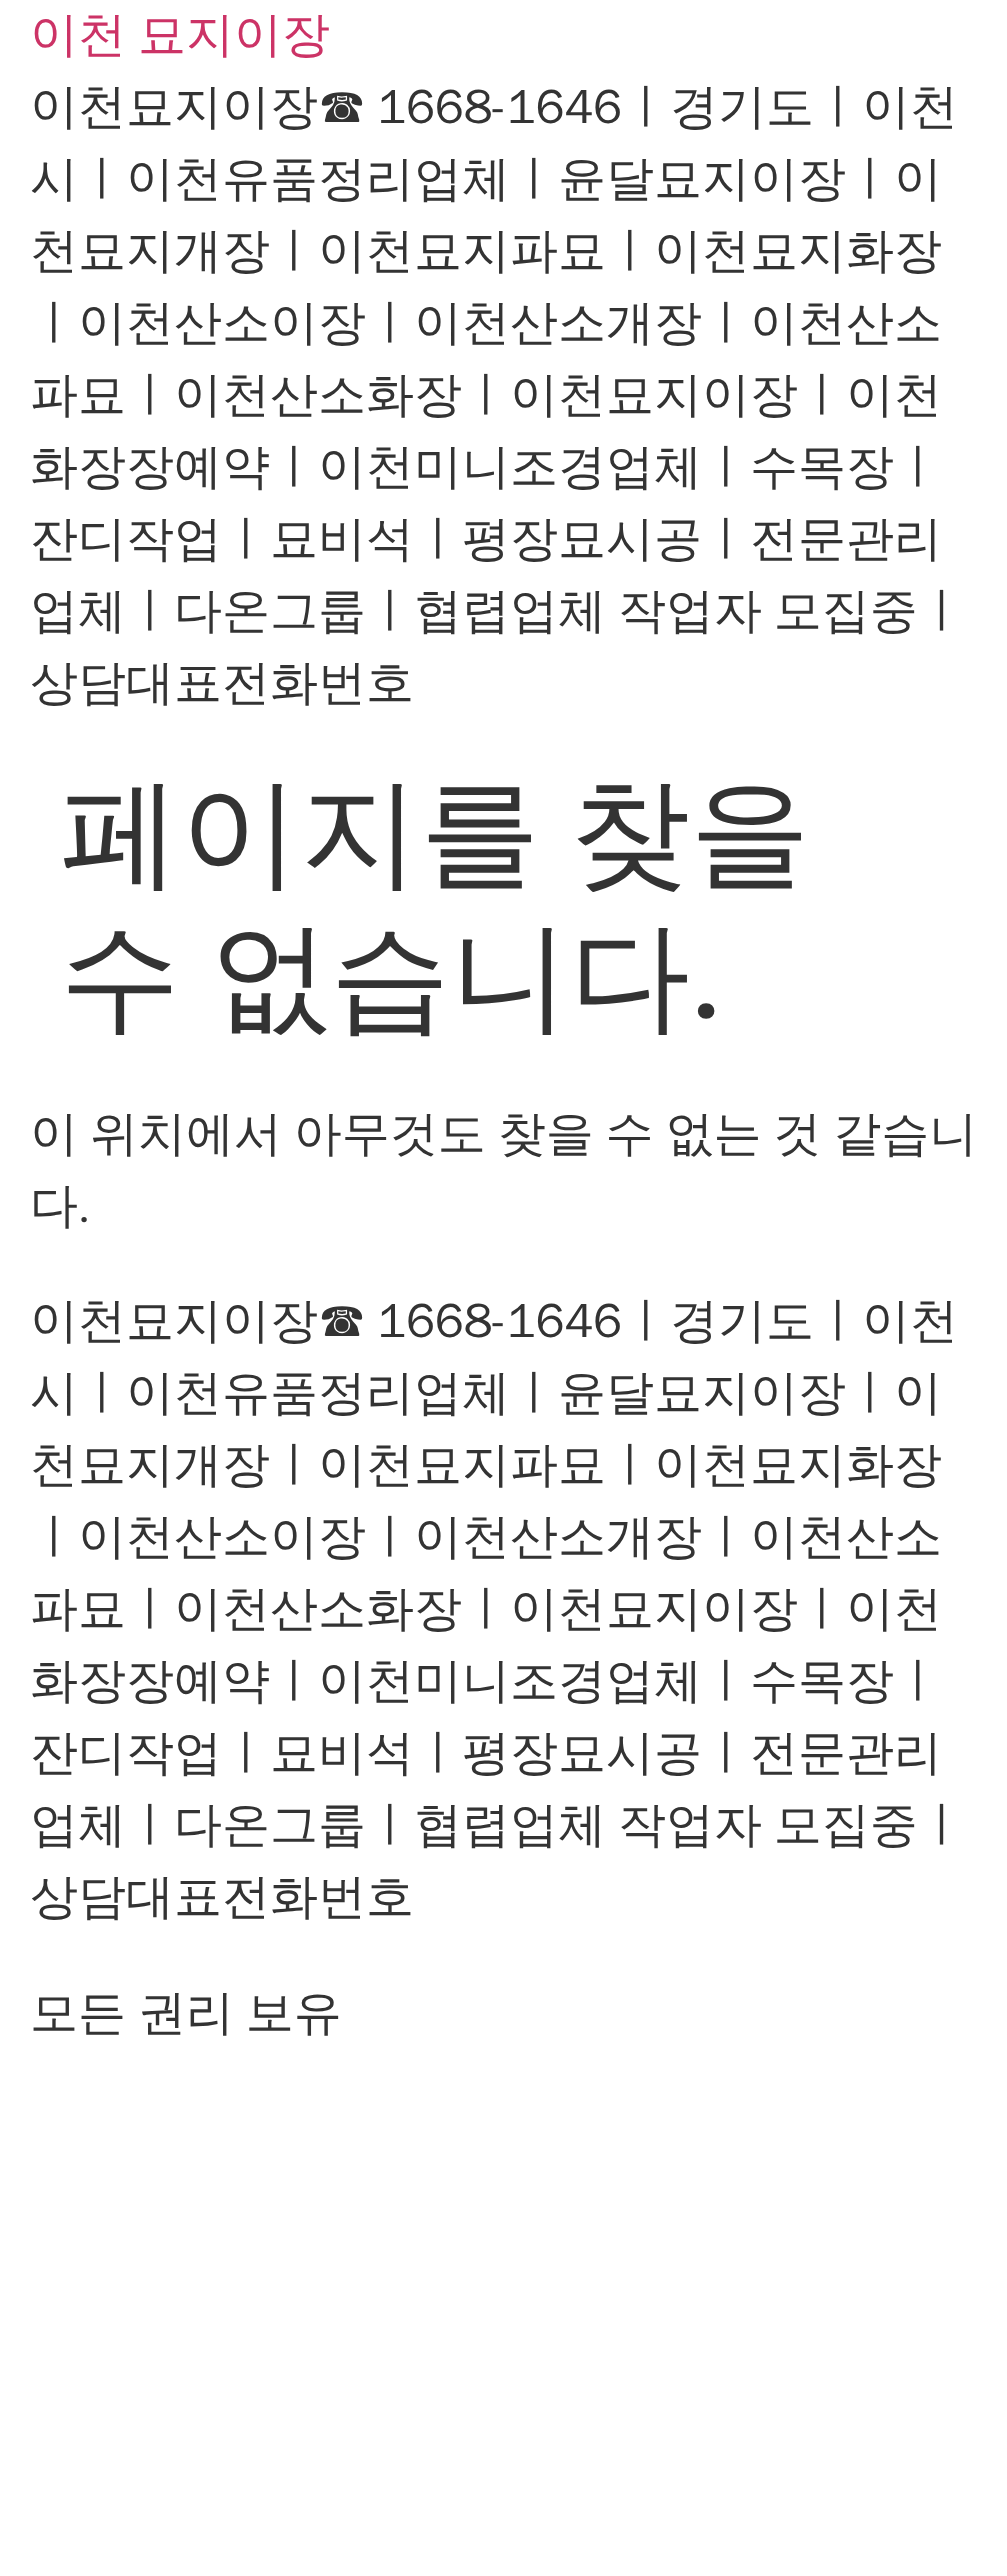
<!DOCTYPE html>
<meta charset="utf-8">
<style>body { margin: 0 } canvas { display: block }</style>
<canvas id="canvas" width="1007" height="2576"></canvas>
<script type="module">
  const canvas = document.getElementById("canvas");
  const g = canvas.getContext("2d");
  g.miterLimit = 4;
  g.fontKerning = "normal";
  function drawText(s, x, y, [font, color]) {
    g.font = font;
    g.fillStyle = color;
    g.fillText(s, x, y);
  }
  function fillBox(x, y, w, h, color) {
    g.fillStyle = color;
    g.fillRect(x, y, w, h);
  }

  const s1 = ["500 48px WenQuanYi Zen Hei", "#CC3366"];
  const s2 = ["500 48px WenQuanYi Zen Hei", "#333333"];
  const s3 = ["500 120px WenQuanYi Zen Hei", "#333333"];
  const s4 = ["500 120px Roboto", "#333333"];
  const s5 = ["48px Roboto", "#333333"];

  fillBox(0, 0, 1007, 2576, "#FFFFFF");
  g.wordSpacing = "-2.5px";
  drawText("이천 묘지이장", 30, 51, s1);
  g.wordSpacing = "-3px";
  drawText("이천묘지이장☎ 1668-1646ㅣ경기도ㅣ이천", 30, 123, s2);
  g.wordSpacing = "0px";
  drawText("시ㅣ이천유품정리업체ㅣ윤달묘지이장ㅣ이", 30, 195, s2);
  drawText("천묘지개장ㅣ이천묘지파묘ㅣ이천묘지화장", 30, 267, s2);
  drawText("ㅣ이천산소이장ㅣ이천산소개장ㅣ이천산소", 30, 339, s2);
  drawText("파묘ㅣ이천산소화장ㅣ이천묘지이장ㅣ이천", 30, 411, s2);
  drawText("화장장예약ㅣ이천미니조경업체ㅣ수목장ㅣ", 30, 483, s2);
  drawText("잔디작업ㅣ묘비석ㅣ평장묘시공ㅣ전문관리", 30, 555, s2);
  g.wordSpacing = "-2.5px";
  drawText("업체ㅣ다온그룹ㅣ협렵업체 작업자 모집중ㅣ", 30, 627, s2);
  g.wordSpacing = "0px";
  drawText("상담대표전화번호", 30, 699, s2);
  g.wordSpacing = "-6px";
  drawText("페이지를 찾을", 60, 874, s3);
  drawText("수 없습니다", 60, 1018, s3);
  g.wordSpacing = "0px";
  drawText(".", 690, 1018, s4);
  g.wordSpacing = "-2.5px";
  drawText("이 위치에서 아무것도 찾을 수 없는 것 같습니", 30, 1150, s2);
  g.wordSpacing = "0px";
  drawText("다", 30, 1222, s2);
  drawText(".", 78, 1222, s5);
  g.wordSpacing = "-3px";
  drawText("이천묘지이장☎ 1668-1646ㅣ경기도ㅣ이천", 30, 1337, s2);
  g.wordSpacing = "0px";
  drawText("시ㅣ이천유품정리업체ㅣ윤달묘지이장ㅣ이", 30, 1409, s2);
  drawText("천묘지개장ㅣ이천묘지파묘ㅣ이천묘지화장", 30, 1481, s2);
  drawText("ㅣ이천산소이장ㅣ이천산소개장ㅣ이천산소", 30, 1553, s2);
  drawText("파묘ㅣ이천산소화장ㅣ이천묘지이장ㅣ이천", 30, 1625, s2);
  drawText("화장장예약ㅣ이천미니조경업체ㅣ수목장ㅣ", 30, 1697, s2);
  drawText("잔디작업ㅣ묘비석ㅣ평장묘시공ㅣ전문관리", 30, 1769, s2);
  g.wordSpacing = "-2.5px";
  drawText("업체ㅣ다온그룹ㅣ협렵업체 작업자 모집중ㅣ", 30, 1841, s2);
  g.wordSpacing = "0px";
  drawText("상담대표전화번호", 30, 1913, s2);
  g.wordSpacing = "-2.5px";
  drawText("모든 권리 보유", 30, 2029, s2);
</script>
